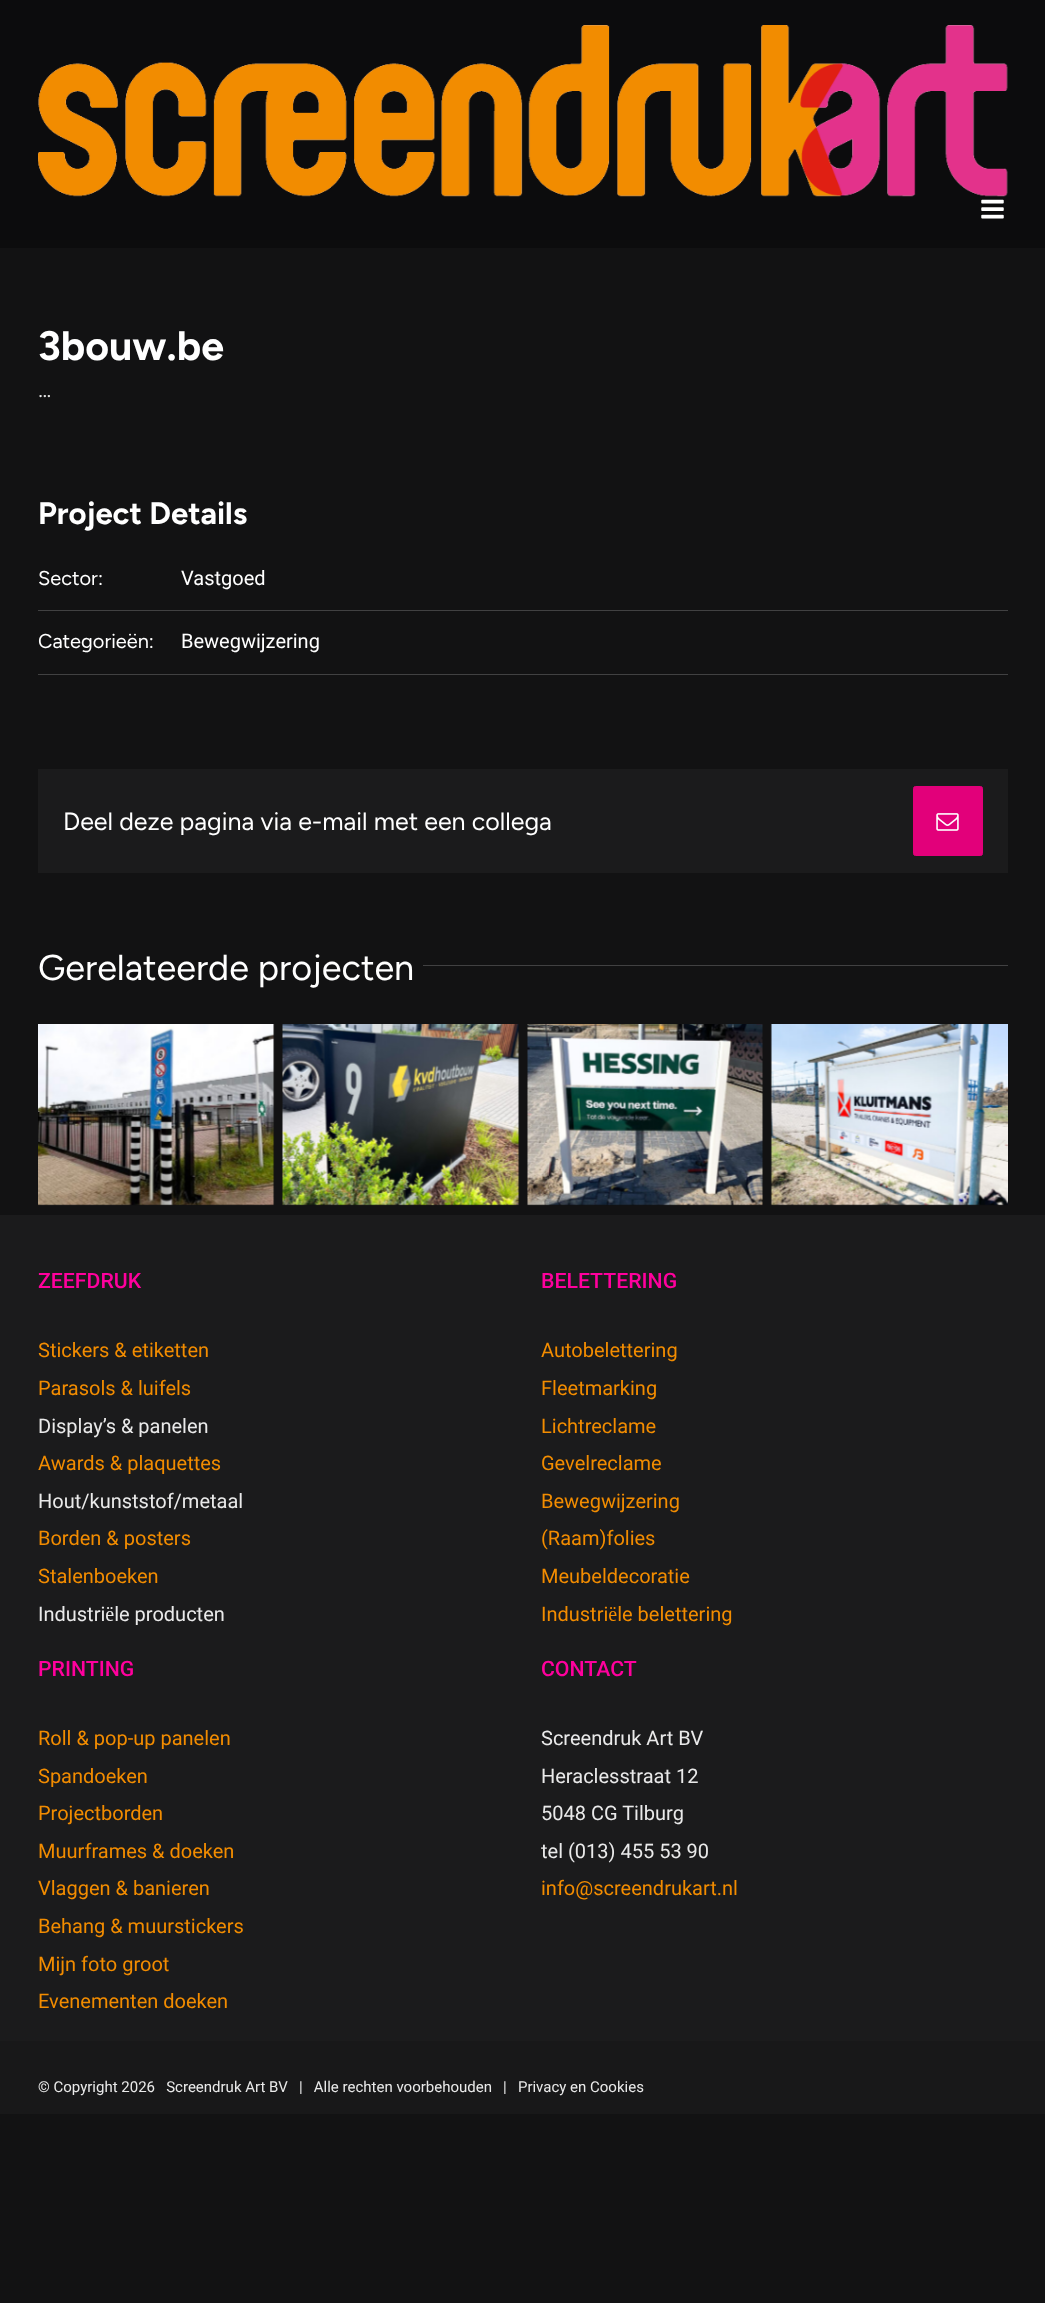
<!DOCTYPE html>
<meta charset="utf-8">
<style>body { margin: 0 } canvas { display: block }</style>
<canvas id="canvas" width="1045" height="2303"></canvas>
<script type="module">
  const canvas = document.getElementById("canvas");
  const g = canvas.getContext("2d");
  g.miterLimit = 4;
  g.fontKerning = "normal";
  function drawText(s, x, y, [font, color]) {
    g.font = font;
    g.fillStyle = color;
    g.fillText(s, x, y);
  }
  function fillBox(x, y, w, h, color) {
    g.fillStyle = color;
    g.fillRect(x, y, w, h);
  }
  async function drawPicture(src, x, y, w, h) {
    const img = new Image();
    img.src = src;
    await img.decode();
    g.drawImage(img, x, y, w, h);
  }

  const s1 = ["bold 41px Figtree", "#FFFFFF"];
  const s2 = ["20px Roboto", "#EAEAEA"];
  const s3 = ["bold 31px Figtree", "#FFFFFF"];
  const s4 = ["20px Figtree", "#FFFFFF"];
  const s5 = ["20px Roboto", "#FFFFFF"];
  const s6 = ["25px Figtree", "#FFFFFF"];
  const s7 = ["36px Figtree", "#FFFFFF"];
  const s8 = ["500 21.25px Roboto", "#FF009D"];
  const s9 = ["20px Roboto", "#F28C00"];
  const s10 = ["15px Roboto", "#EAEAEA"];

  fillBox(0, 0, 1045, 2303, "#121213");
  fillBox(0, 0, 1045, 248, "#0C0C0D");
  await drawPicture("pic1.png", 38, 25, 970, 172);
  await drawPicture("pic2.png", 981, 199, 23, 20);
  drawText("3bouw.be", 38, 360, s1);
  drawText("…", 38, 397, s2);
  drawText("Project Details", 38, 524, s3);
  fillBox(38, 610, 970, 1, "#414142");
  drawText("Sector:", 38, 585, s4);
  drawText("Vastgoed", 181, 585, s5);
  fillBox(38, 674, 970, 1, "#414142");
  drawText("Categorieën:", 38, 648, s4);
  drawText("Bewegwijzering", 181, 648, s5);
  fillBox(38, 769, 970, 104, "#1B1B1C");
  drawText("Deel deze pagina via e-mail met een collega", 63, 830, s6);
  g.fillStyle = "#E2007A";
  g.beginPath();
  g.roundRect(913.5, 786.5, 69, 69, 2);
  g.fill();
  g.strokeStyle = "#E2007A";
  g.stroke();
  await drawPicture("pic3.png", 936, 813, 23, 18);
  drawText("Gerelateerde projecten", 38, 980, s7);
  fillBox(423, 965, 585, 1, "#414142");
  await drawPicture("pic4.png", 38, 1024, 237, 182);
  await drawPicture("pic5.png", 282, 1024, 238, 182);
  await drawPicture("pic6.png", 527, 1024, 236, 182);
  await drawPicture("pic7.png", 770, 1024, 238, 182);
  fillBox(0, 1215, 1045, 826, "#1B1B1C");
  drawText("ZEEFDRUK", 38, 1288, s8);
  drawText("Stickers & etiketten", 38, 1357, s9);
  drawText("Parasols & luifels", 38, 1395, s9);
  drawText("Display’s & panelen", 38, 1433, s2);
  drawText("Awards & plaquettes", 38, 1470, s9);
  drawText("Hout/kunststof/metaal", 38, 1508, s2);
  drawText("Borden & posters", 38, 1545, s9);
  drawText("Stalenboeken", 38, 1583, s9);
  drawText("Industriële producten", 38, 1621, s2);
  drawText("BELETTERING", 541, 1288, s8);
  drawText("Autobelettering", 541, 1357, s9);
  drawText("Fleetmarking", 541, 1395, s9);
  drawText("Lichtreclame", 541, 1433, s9);
  drawText("Gevelreclame", 541, 1470, s9);
  drawText("Bewegwijzering", 541, 1508, s9);
  drawText("(Raam)folies", 541, 1545, s9);
  drawText("Meubeldecoratie", 541, 1583, s9);
  drawText("Industriële belettering", 541, 1621, s9);
  drawText("PRINTING", 38, 1676, s8);
  drawText("Roll & pop-up panelen", 38, 1745, s9);
  drawText("Spandoeken", 38, 1783, s9);
  drawText("Projectborden", 38, 1820, s9);
  drawText("Muurframes & doeken", 38, 1858, s9);
  drawText("Vlaggen & banieren", 38, 1895, s9);
  drawText("Behang & muurstickers", 38, 1933, s9);
  drawText("Mijn foto groot", 38, 1971, s9);
  drawText("Evenementen doeken", 38, 2008, s9);
  drawText("CONTACT", 541, 1676, s8);
  drawText("Screendruk Art BV", 541, 1745, s2);
  drawText("Heraclesstraat 12", 541, 1783, s2);
  drawText("5048 CG Tilburg", 541, 1820, s2);
  drawText("tel (013) 455 53 90", 541, 1858, s2);
  drawText("info@screendrukart.nl", 541, 1895, s9);
  fillBox(0, 2041, 1045, 73, "#181819");
  drawText("© Copyright 2026   Screendruk Art BV   |   Alle rechten voorbehouden   |   Privacy en Cookies", 38, 2092, s10);
</script>
